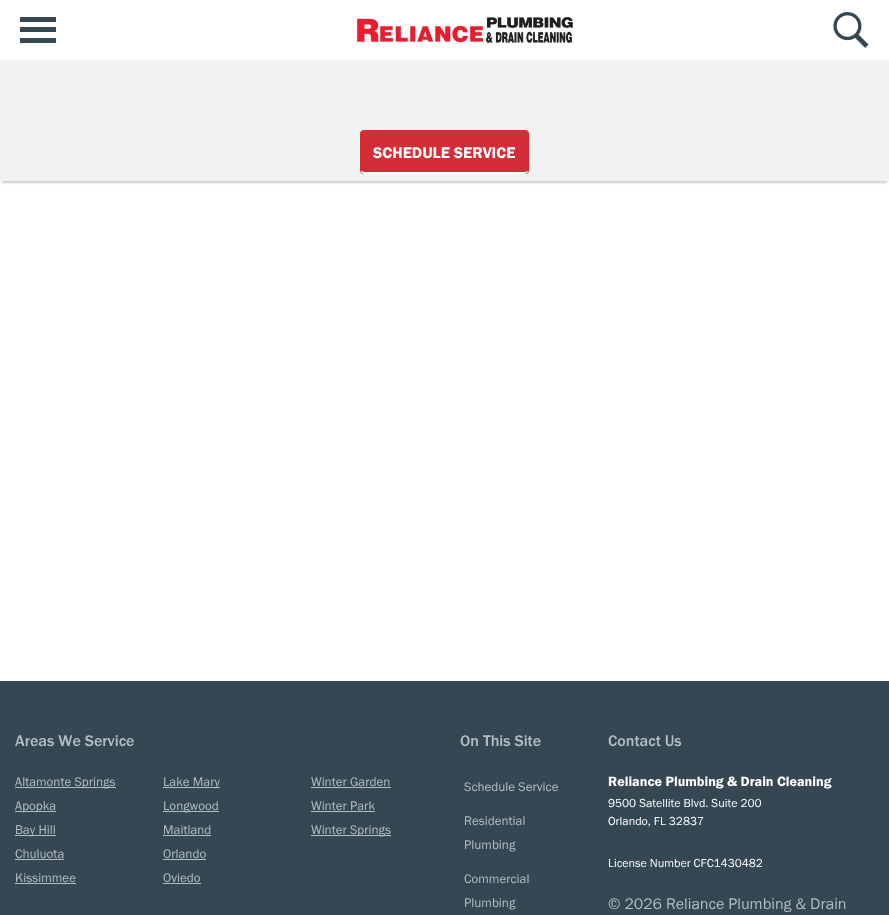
<!DOCTYPE html>
<meta charset="utf-8">
<style>body { margin: 0 } canvas { display: block }</style>
<canvas id="canvas" width="889" height="915"></canvas>
<script type="module">
  const canvas = document.getElementById("canvas");
  const g = canvas.getContext("2d");
  g.miterLimit = 4;
  g.fontKerning = "normal";
  function drawText(s, x, y, [font, color]) {
    g.font = font;
    g.fillStyle = color;
    g.fillText(s, x, y);
  }
  function fillBox(x, y, w, h, color) {
    g.fillStyle = color;
    g.fillRect(x, y, w, h);
  }
  function fillRounded(x, y, w, h, r, color) {
    g.fillStyle = color;
    g.beginPath();
    g.roundRect(x, y, w, h, r);
    g.fill();
  }
  async function drawPicture(src, x, y, w, h) {
    const img = new Image();
    img.src = src;
    await img.decode();
    g.drawImage(img, x, y, w, h);
  }

  const s1 = ["16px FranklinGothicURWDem", "#FFFFFF"];
  const s2 = ["16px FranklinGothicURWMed", "#B4BDC4"];
  const s3 = ["13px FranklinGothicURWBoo", "#B4BDC4"];
  const s4 = ["14px FranklinGothicURWDem", "#FFFFFF"];
  const s5 = ["12px FranklinGothicURWBoo", "#FFFFFF"];
  const s6 = ["16px FranklinGothicURWBoo", "#B4BDC4"];

  fillBox(0, 0, 889, 915, "#FFFFFF");
  fillBox(20, 17, 36, 5, "#364754");
  fillBox(20, 27, 36, 5, "#364754");
  fillBox(20, 38, 36, 5, "#364754");
  await drawPicture("pic1.png", 355, 16, 219, 28);
  await drawPicture("pic2.png", 833, 12, 36, 36);
  g.fillStyle = "#CCCCCC";
  g.filter = "blur(1px)";
  g.beginPath();
  g.rect(2, 66, 885, 117);
  g.fill();
  g.filter = "none";
  fillBox(0, 60, 889, 121, "#F1F2F2");
  fillRounded(360, 130, 169, 44, 4, "#D52D37");
  g.fillStyle = "#FFFFFF";
  g.beginPath();
  g.moveTo(364, 174);
  g.lineTo(525, 174);
  g.lineTo(528, 172);
  g.lineTo(528, 171);
  g.lineTo(525, 172);
  g.lineTo(364, 172);
  g.lineTo(361, 171);
  g.lineTo(361, 172);
  g.bezierCurveTo(362, 173, 363, 174, 364, 174);
  g.closePath();
  g.fill();
  drawText("SCHEDULE SERVICE", 373, 158, s1);
  fillBox(0, 681, 889, 234, "#364754");
  drawText("Areas We Service", 15, 746, s2);
  drawText("On This Site", 460, 746, s2);
  drawText("Contact Us", 608, 746, s2);
  fillBox(15, 787, 101, 1, "#B4BDC4");
  drawText("Altamonte Springs", 15, 786, s3);
  fillBox(15, 811, 41, 1, "#B4BDC4");
  drawText("Apopka", 15, 810, s3);
  fillBox(15, 835, 41, 1, "#B4BDC4");
  drawText("Bay Hill", 15, 834, s3);
  drawText("Chuluota", 15, 858, s3);
  fillBox(15, 859, 49, 1, "#B4BDC4");
  drawText("Kissimmee", 15, 882, s3);
  fillBox(15, 883, 61, 1, "#B4BDC4");
  fillBox(163, 787, 57, 1, "#B4BDC4");
  drawText("Lake Mary", 163, 786, s3);
  fillBox(163, 811, 56, 1, "#B4BDC4");
  drawText("Longwood", 163, 810, s3);
  drawText("Maitland", 163, 834, s3);
  fillBox(163, 835, 48, 1, "#B4BDC4");
  drawText("Orlando", 163, 858, s3);
  fillBox(163, 859, 43, 1, "#B4BDC4");
  drawText("Oviedo", 163, 882, s3);
  fillBox(163, 883, 38, 1, "#B4BDC4");
  drawText("Winter Garden", 311, 786, s3);
  fillBox(311, 787, 80, 1, "#B4BDC4");
  drawText("Winter Park", 311, 810, s3);
  fillBox(311, 811, 64, 1, "#B4BDC4");
  fillBox(311, 835, 80, 1, "#B4BDC4");
  drawText("Winter Springs", 311, 834, s3);
  drawText("Schedule Service", 464, 791, s3);
  drawText("Residential", 464, 825, s3);
  drawText("Plumbing", 464, 849, s3);
  drawText("Commercial", 464, 883, s3);
  drawText("Plumbing", 464, 907, s3);
  drawText("Reliance Plumbing & Drain Cleaning", 608, 786, s4);
  drawText("9500 Satellite Blvd. Suite 200", 608, 807, s5);
  drawText("Orlando, FL 32837", 608, 825, s5);
  drawText("License Number CFC1430482", 608, 867, s5);
  drawText("© 2026 Reliance Plumbing & Drain", 608, 909, s6);
</script>
